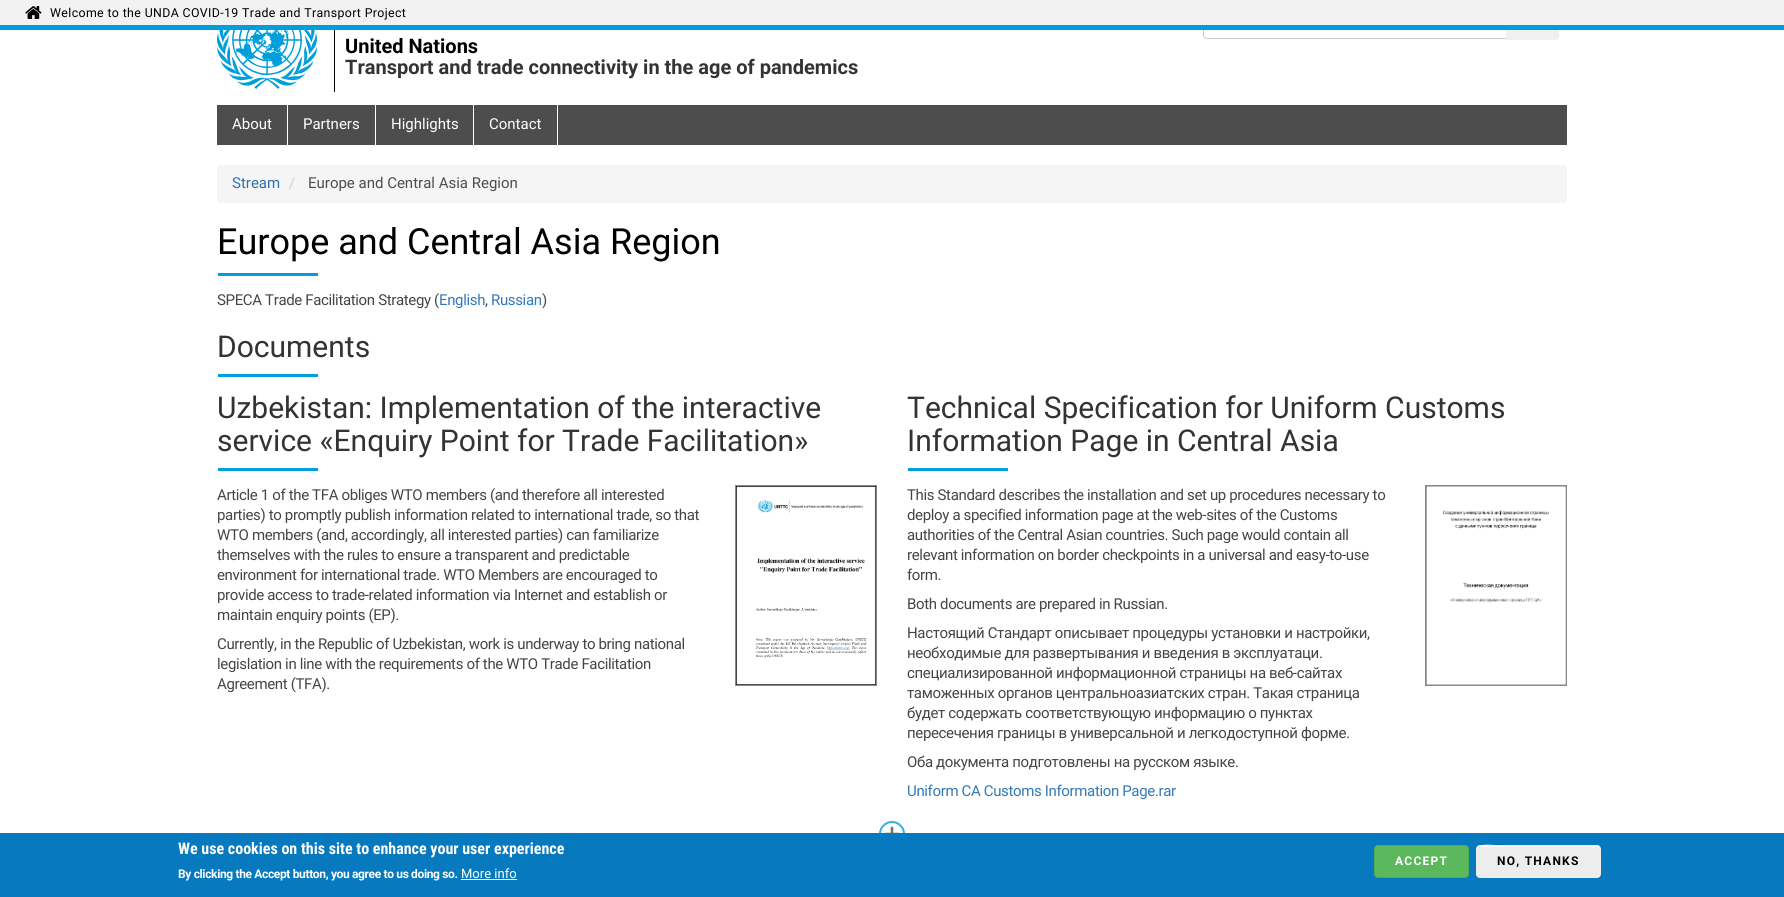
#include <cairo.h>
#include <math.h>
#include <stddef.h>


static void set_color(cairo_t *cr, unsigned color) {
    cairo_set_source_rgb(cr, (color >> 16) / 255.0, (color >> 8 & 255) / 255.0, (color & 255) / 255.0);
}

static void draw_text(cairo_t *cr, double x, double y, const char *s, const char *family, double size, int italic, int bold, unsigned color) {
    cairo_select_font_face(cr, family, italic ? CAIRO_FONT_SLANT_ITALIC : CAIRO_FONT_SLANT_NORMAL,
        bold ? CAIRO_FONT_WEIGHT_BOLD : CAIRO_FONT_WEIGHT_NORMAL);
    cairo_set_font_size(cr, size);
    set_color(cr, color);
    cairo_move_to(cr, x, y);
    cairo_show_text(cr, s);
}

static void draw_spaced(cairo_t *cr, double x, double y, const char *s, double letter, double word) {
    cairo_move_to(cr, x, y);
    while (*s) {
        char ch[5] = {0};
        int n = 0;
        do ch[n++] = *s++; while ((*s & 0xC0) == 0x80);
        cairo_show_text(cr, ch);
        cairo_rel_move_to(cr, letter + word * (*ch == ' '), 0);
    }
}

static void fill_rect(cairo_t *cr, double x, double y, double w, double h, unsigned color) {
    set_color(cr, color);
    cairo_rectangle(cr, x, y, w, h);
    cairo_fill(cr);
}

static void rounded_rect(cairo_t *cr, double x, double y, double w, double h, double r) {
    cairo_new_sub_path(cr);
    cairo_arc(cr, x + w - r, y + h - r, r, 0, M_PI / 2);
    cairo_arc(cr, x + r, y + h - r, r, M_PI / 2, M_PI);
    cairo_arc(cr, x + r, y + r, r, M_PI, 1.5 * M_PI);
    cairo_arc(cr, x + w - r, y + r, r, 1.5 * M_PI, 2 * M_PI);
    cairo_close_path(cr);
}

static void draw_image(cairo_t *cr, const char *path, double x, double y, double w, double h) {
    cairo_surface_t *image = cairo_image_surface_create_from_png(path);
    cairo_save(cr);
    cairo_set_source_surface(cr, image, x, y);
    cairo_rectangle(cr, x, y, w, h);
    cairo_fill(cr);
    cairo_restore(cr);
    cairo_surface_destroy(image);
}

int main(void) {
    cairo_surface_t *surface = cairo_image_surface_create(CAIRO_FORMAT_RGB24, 1784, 897);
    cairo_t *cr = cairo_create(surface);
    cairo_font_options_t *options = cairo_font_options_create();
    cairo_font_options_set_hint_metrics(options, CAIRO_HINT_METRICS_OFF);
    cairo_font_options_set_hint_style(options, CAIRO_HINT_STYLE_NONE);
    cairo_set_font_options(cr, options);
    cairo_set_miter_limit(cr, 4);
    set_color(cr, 0xFFFFFF);
    cairo_paint(cr);
    rounded_rect(cr, 1203.5, 5.5, 317, 33, 3.5);
    set_color(cr, 0xCCCCCC);
    cairo_set_line_width(cr, 1);
    cairo_stroke(cr);
    set_color(cr, 0xF0F0F0);
    cairo_new_path(cr);
    cairo_move_to(cr, 1506.5, 4.5);
    cairo_line_to(cr, 1555, 4.5);
    cairo_curve_to(cr, 1557, 4.5, 1558.5, 6, 1558.5, 8);
    cairo_line_to(cr, 1558.5, 36);
    cairo_curve_to(cr, 1558.5, 38, 1557, 39.5, 1555, 39.5);
    cairo_line_to(cr, 1506.5, 39.5);
    cairo_close_path(cr);
    cairo_fill_preserve(cr);
    cairo_stroke(cr);
    fill_rect(cr, 0, 0, 1784, 25, 0xF2F2F2);
    fill_rect(cr, 0, 25, 1784, 5, 0x009EDB);
    draw_image(cr, "assets/img1.png", 25, 6, 17, 13);
    cairo_select_font_face(cr, "Roboto", CAIRO_FONT_SLANT_NORMAL, CAIRO_FONT_WEIGHT_NORMAL);
    cairo_set_font_size(cr, 12.35);
    set_color(cr, 0x000000);
    draw_spaced(cr, 50, 17, "Welcome to the UNDA COVID-19 Trade and Transport Project", 0.37, 0);
    fill_rect(cr, 334, 30, 1, 62, 0x000000);
    draw_image(cr, "assets/img2.png", 217, 30, 100, 59);
    draw_text(cr, 345, 53, "United Nations", "Roboto", 20, 0, 1, 0x000000);
    draw_text(cr, 345, 74, "Transport and trade connectivity in the age of pandemics", "Roboto", 20, 0, 1, 0x333333);
    fill_rect(cr, 217, 105, 1350, 40, 0x4D4D4D);
    fill_rect(cr, 287, 105, 1, 40, 0xFFFFFF);
    draw_text(cr, 232, 129, "About", "Roboto", 15, 0, 0, 0xFFFFFF);
    fill_rect(cr, 375, 105, 1, 40, 0xFFFFFF);
    draw_text(cr, 303, 129, "Partners", "Roboto", 15, 0, 0, 0xFFFFFF);
    fill_rect(cr, 473, 105, 1, 40, 0xFFFFFF);
    draw_text(cr, 391, 129, "Highlights", "Roboto", 15, 0, 0, 0xFFFFFF);
    fill_rect(cr, 557, 105, 1, 40, 0xFFFFFF);
    draw_text(cr, 489, 129, "Contact", "Roboto", 15, 0, 0, 0xFFFFFF);
    set_color(cr, 0xF5F5F5);
    rounded_rect(cr, 217, 165, 1350, 38, 4);
    cairo_fill(cr);
    draw_text(cr, 232, 188, "Stream", "Roboto", 15, 0, 0, 0x2E72AC);
    draw_text(cr, 289, 188, "/", "Roboto", 15, 0, 0, 0xCCCCCC);
    draw_text(cr, 308, 188, "Europe and Central Asia Region", "Roboto", 15, 0, 0, 0x4D4D4D);
    draw_text(cr, 217, 254, "Europe and Central Asia Region", "Roboto", 36, 0, 0, 0x000000);
    fill_rect(cr, 218, 273, 100, 3, 0x009EDB);
    cairo_set_font_size(cr, 15);
    set_color(cr, 0x454545);
    draw_spaced(cr, 217, 305, "SPECA Trade Facilitation Strategy (", -0.35, 0);
    set_color(cr, 0x337AB7);
    draw_spaced(cr, 439, 305, "English", -0.35, 0);
    set_color(cr, 0x454545);
    draw_spaced(cr, 485, 305, ",", -0.35, 0);
    set_color(cr, 0x337AB7);
    draw_spaced(cr, 491, 305, "Russian", -0.35, 0);
    set_color(cr, 0x454545);
    draw_spaced(cr, 542, 305, ")", -0.35, 0);
    draw_text(cr, 217, 357, "Documents", "Roboto", 30, 0, 0, 0x333333);
    fill_rect(cr, 218, 374, 100, 3, 0x009EDB);
    draw_text(cr, 217, 418, "Uzbekistan: Implementation of the interactive", "Roboto", 30, 0, 0, 0x333333);
    draw_text(cr, 217, 451, "service «Enquiry Point for Trade Facilitation»", "Roboto", 30, 0, 0, 0x333333);
    fill_rect(cr, 218, 468, 100, 3, 0x009EDB);
    cairo_set_font_size(cr, 15);
    set_color(cr, 0x454545);
    draw_spaced(cr, 217, 500, "Article 1 of the TFA obliges WTO members (and therefore all interested", -0.35, 0);
    draw_spaced(cr, 217, 520, "parties) to promptly publish information related to international trade, so that", -0.35, 0);
    draw_spaced(cr, 217, 540, "WTO members (and, accordingly, all interested parties) can familiarize", -0.35, 0);
    draw_spaced(cr, 217, 560, "themselves with the rules to ensure a transparent and predictable", -0.35, 0);
    draw_spaced(cr, 217, 580, "environment for international trade. WTO Members are encouraged to", -0.35, 0);
    draw_spaced(cr, 217, 600, "provide access to trade-related information via Internet and establish or", -0.35, 0);
    draw_spaced(cr, 217, 620, "maintain enquiry points (EP).", -0.35, 0);
    draw_spaced(cr, 217, 649, "Currently, in the Republic of Uzbekistan, work is underway to bring national", -0.35, 0);
    draw_spaced(cr, 217, 669, "legislation in line with the requirements of the WTO Trade Facilitation", -0.35, 0);
    draw_spaced(cr, 217, 689, "Agreement (TFA).", -0.35, 0);
    cairo_rectangle(cr, 735.5, 485.5, 141, 200);
    set_color(cr, 0x888888);
    cairo_stroke(cr);
    draw_image(cr, "assets/img3.png", 736, 486, 140, 199);
    draw_text(cr, 907, 418, "Technical Specification for Uniform Customs", "Roboto", 30, 0, 0, 0x333333);
    draw_text(cr, 907, 451, "Information Page in Central Asia", "Roboto", 30, 0, 0, 0x333333);
    fill_rect(cr, 908, 468, 100, 3, 0x009EDB);
    cairo_set_font_size(cr, 15);
    set_color(cr, 0x454545);
    draw_spaced(cr, 907, 500, "This Standard describes the installation and set up procedures necessary to", -0.35, 0);
    draw_spaced(cr, 907, 520, "deploy a specified information page at the web-sites of the Customs", -0.35, 0);
    draw_spaced(cr, 907, 540, "authorities of the Central Asian countries. Such page would contain all", -0.35, 0);
    draw_spaced(cr, 907, 560, "relevant information on border checkpoints in a universal and easy-to-use", -0.35, 0);
    draw_spaced(cr, 907, 580, "form.", -0.35, 0);
    draw_spaced(cr, 907, 609, "Both documents are prepared in Russian.", -0.35, 0);
    draw_spaced(cr, 907, 638, "Настоящий Стандарт описывает процедуры установки и настройки,", -0.35, 0);
    draw_spaced(cr, 907, 658, "необходимые для развертывания и введения в эксплуатаци.", -0.35, 0);
    draw_spaced(cr, 907, 678, "специализированной информационной страницы на веб-сайтах", -0.35, 0);
    draw_spaced(cr, 907, 698, "таможенных органов центральноазиатских стран. Такая страница", -0.35, 0);
    draw_spaced(cr, 907, 718, "будет содержать соответствующую информацию о пунктах", -0.35, 0);
    draw_spaced(cr, 907, 738, "пересечения границы в универсальной и легкодоступной форме.", -0.35, 0);
    draw_spaced(cr, 907, 767, "Оба документа подготовлены на русском языке.", -0.35, 0);
    set_color(cr, 0x337AB7);
    draw_spaced(cr, 907, 796, "Uniform CA Customs Information Page.rar", -0.35, 0);
    cairo_rectangle(cr, 1425.5, 485.5, 141, 200);
    set_color(cr, 0x888888);
    cairo_stroke(cr);
    draw_image(cr, "assets/img4.png", 1426, 486, 140, 199);
    draw_image(cr, "assets/img5.png", 879, 821, 26, 12);
    fill_rect(cr, 0, 833, 1784, 64, 0x0779BF);
    draw_text(cr, 178, 854, "We use cookies on this site to enhance your user experience", "Roboto Condensed", 16, 0, 1, 0xFFFFFF);
    cairo_select_font_face(cr, "Roboto", CAIRO_FONT_SLANT_NORMAL, CAIRO_FONT_WEIGHT_BOLD);
    cairo_set_font_size(cr, 12);
    draw_spaced(cr, 178, 878, "By clicking the Accept button, you agree to us doing so.", -0.35, 0);
    draw_text(cr, 461, 878, "More info", "Roboto", 13, 0, 0, 0xFFFFFF);
    fill_rect(cr, 461, 879, 56, 1, 0xFFFFFF);
    set_color(cr, 0x5CB85C);
    rounded_rect(cr, 1374.5, 845.5, 94, 32, 3.5);
    cairo_fill_preserve(cr);
    set_color(cr, 0x4CAE4C);
    cairo_stroke(cr);
    cairo_select_font_face(cr, "Roboto", CAIRO_FONT_SLANT_NORMAL, CAIRO_FONT_WEIGHT_BOLD);
    cairo_set_font_size(cr, 12);
    set_color(cr, 0xFFFFFF);
    draw_spaced(cr, 1395, 865, "ACCEPT", 1.25, 0);
    set_color(cr, 0xEDEDED);
    rounded_rect(cr, 1476, 845, 125, 33, 4);
    cairo_fill(cr);
    set_color(cr, 0xFFFFFF);
    cairo_new_path(cr);
    cairo_move_to(cr, 1480, 847);
    cairo_line_to(cr, 1597, 847);
    cairo_curve_to(cr, 1599, 847, 1600, 848, 1600, 850);
    cairo_curve_to(cr, 1600, 848, 1599, 846, 1597, 846);
    cairo_line_to(cr, 1500, 846);
    cairo_curve_to(cr, 1499, 846, 1477, 841, 1477, 850);
    cairo_curve_to(cr, 1477, 848, 1478, 847, 1480, 847);
    cairo_close_path(cr);
    cairo_fill(cr);
    set_color(cr, 0x000000);
    draw_spaced(cr, 1497, 865, "NO, THANKS", 1.25, 0);
    cairo_surface_write_to_png(surface, "output.png");
    cairo_font_options_destroy(options);
    cairo_destroy(cr);
    cairo_surface_destroy(surface);
    return 0;
}
